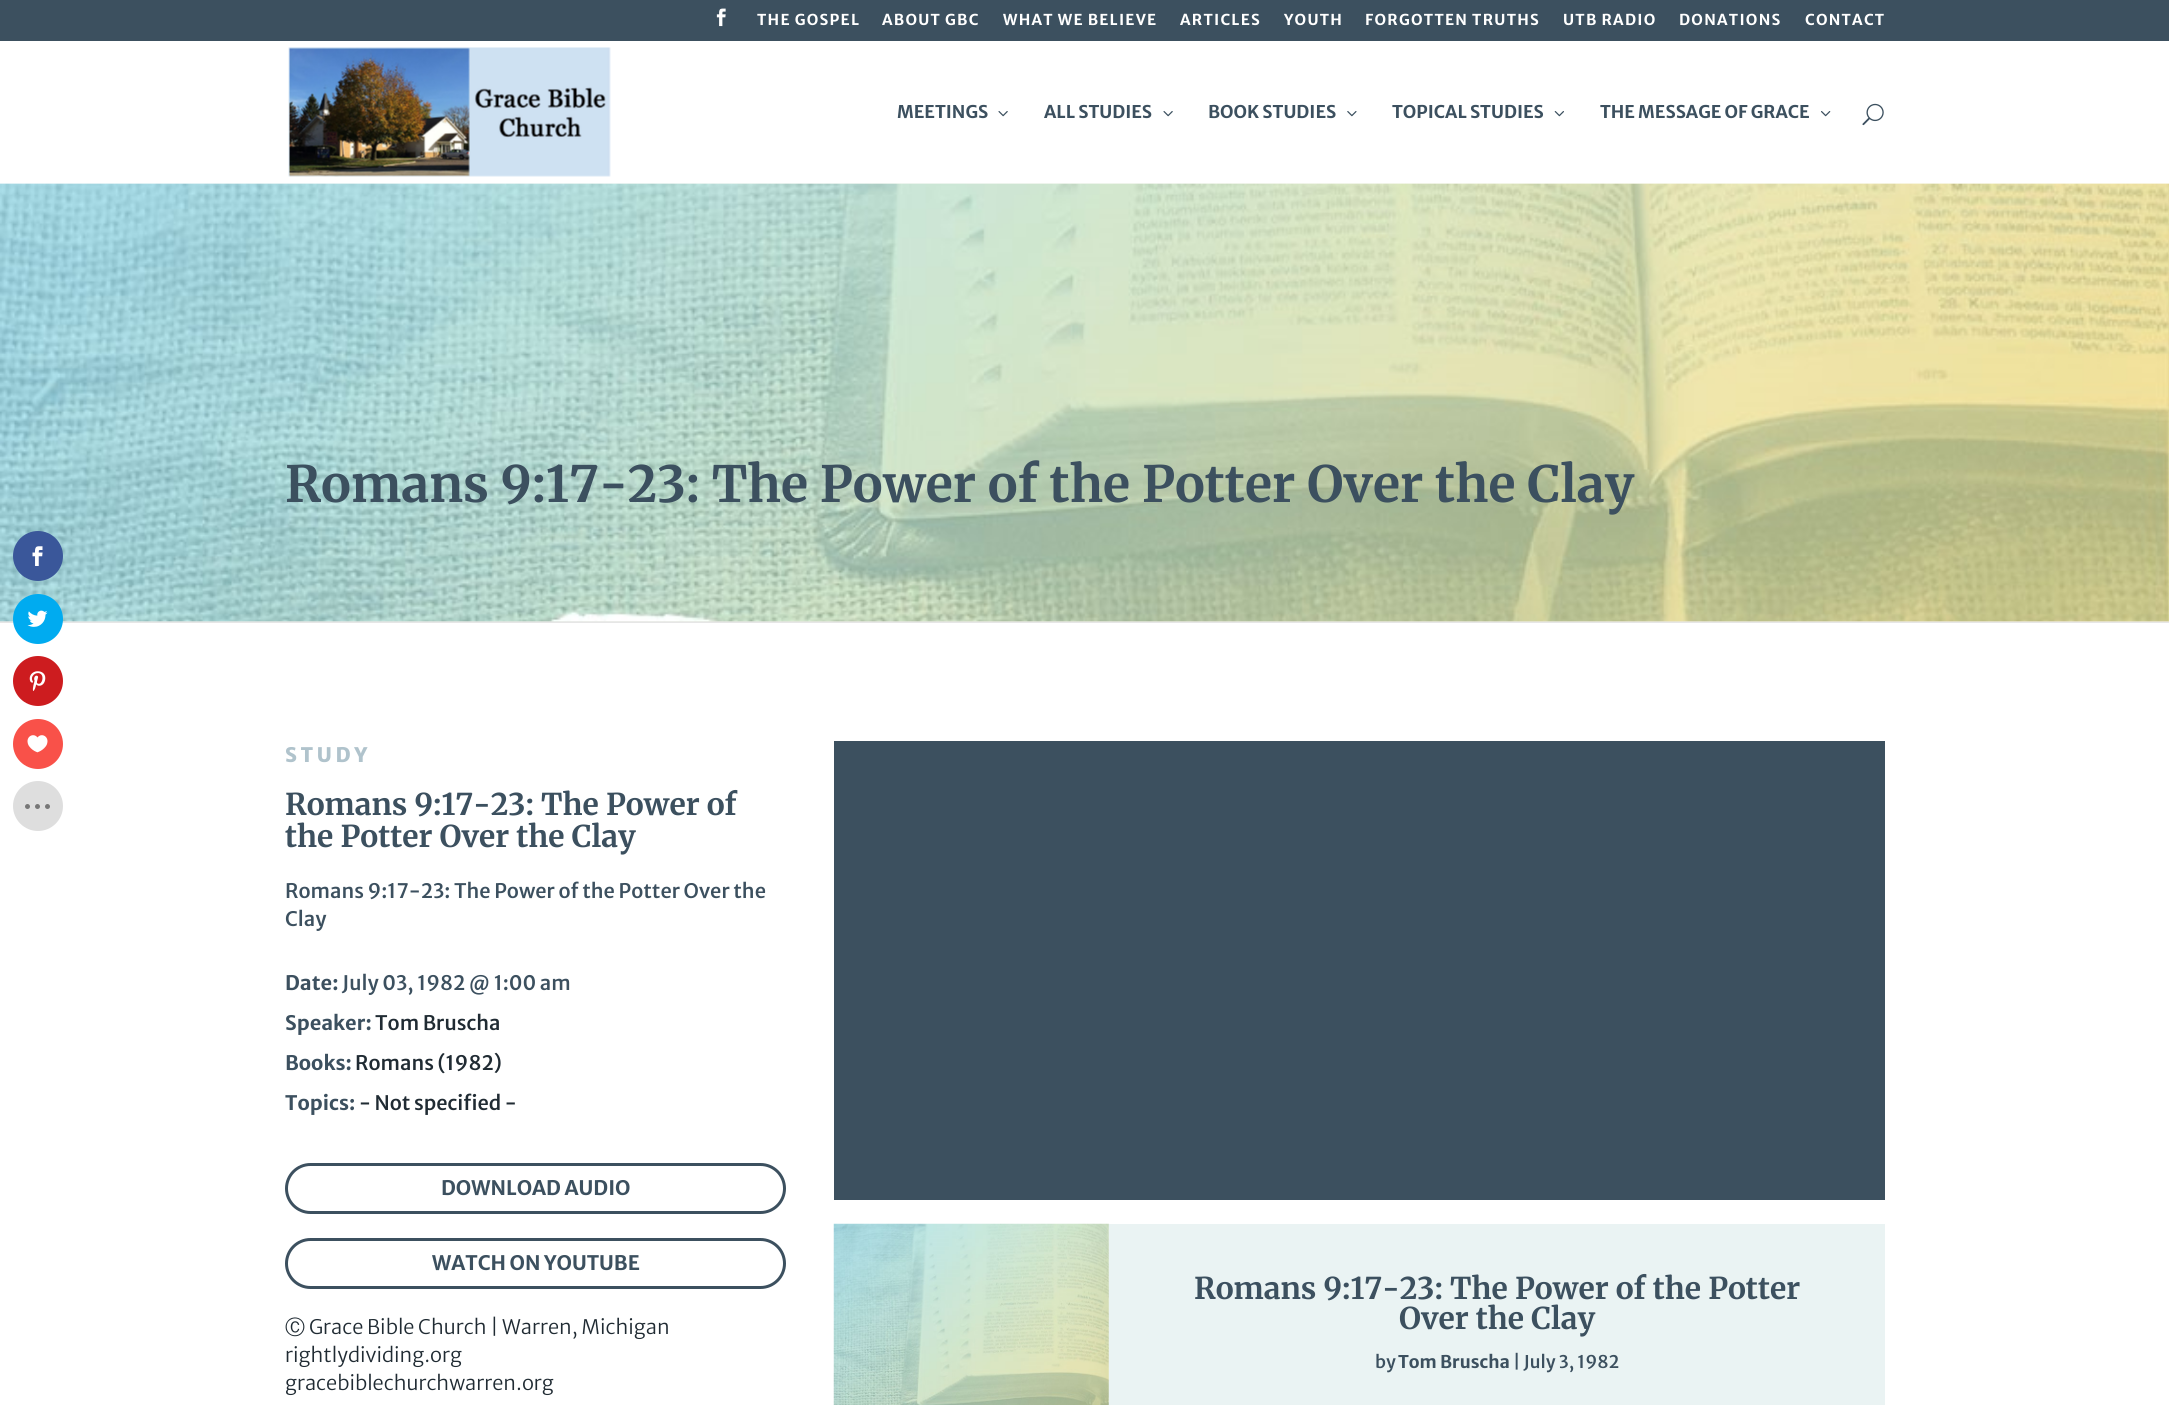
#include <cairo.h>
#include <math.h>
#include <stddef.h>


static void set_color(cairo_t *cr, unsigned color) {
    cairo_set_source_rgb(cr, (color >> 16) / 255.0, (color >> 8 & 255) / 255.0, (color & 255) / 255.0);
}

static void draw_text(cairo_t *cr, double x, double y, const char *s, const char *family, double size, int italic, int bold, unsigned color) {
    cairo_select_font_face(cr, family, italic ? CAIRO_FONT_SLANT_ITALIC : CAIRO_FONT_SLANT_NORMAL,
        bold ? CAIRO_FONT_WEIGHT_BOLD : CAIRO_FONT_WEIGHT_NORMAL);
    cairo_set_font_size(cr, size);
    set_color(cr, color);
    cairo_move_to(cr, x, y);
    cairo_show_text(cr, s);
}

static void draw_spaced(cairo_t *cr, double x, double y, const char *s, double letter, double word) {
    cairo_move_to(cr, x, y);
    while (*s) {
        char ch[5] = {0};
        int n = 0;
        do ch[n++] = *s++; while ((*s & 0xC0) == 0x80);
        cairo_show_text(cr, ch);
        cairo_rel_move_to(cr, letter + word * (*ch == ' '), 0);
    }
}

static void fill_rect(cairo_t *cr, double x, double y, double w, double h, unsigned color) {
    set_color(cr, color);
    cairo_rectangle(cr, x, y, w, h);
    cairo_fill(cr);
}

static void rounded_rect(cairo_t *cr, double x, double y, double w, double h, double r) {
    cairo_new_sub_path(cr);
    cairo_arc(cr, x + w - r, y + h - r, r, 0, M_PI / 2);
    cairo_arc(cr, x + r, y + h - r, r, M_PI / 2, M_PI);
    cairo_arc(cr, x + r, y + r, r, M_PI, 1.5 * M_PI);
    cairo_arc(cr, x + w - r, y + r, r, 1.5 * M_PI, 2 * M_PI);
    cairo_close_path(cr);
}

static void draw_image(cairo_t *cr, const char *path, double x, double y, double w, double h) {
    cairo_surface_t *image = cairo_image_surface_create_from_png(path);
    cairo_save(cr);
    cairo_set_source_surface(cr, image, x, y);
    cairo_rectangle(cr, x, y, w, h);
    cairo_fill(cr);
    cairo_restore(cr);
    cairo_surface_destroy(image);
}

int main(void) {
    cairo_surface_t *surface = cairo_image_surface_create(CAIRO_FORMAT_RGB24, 2169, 1405);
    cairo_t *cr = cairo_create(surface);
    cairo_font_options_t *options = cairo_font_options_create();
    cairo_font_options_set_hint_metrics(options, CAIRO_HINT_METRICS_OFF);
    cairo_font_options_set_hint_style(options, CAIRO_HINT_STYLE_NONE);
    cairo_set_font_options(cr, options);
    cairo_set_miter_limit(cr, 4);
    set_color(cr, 0xFFFFFF);
    cairo_paint(cr);
    fill_rect(cr, 0, 621, 2169, 2, 0xE6E6E6);
    draw_image(cr, "assets/img13.png", 0, 183, 2169, 439);
    set_color(cr, 0x3A579A);
    cairo_arc(cr, 38, 556, 25, 0, 2 * M_PI);
    cairo_fill(cr);
    draw_image(cr, "assets/img1.png", 32, 546, 11, 20);
    set_color(cr, 0x00ABF0);
    cairo_arc(cr, 38, 619, 25, 0, 2 * M_PI);
    cairo_fill(cr);
    draw_image(cr, "assets/img2.png", 27, 610, 21, 17);
    set_color(cr, 0xCD1C1F);
    cairo_arc(cr, 38, 681, 25, 0, 2 * M_PI);
    cairo_fill(cr);
    draw_image(cr, "assets/img3.png", 29, 671, 17, 20);
    set_color(cr, 0xF95149);
    cairo_arc(cr, 38, 744, 25, 0, 2 * M_PI);
    cairo_fill(cr);
    draw_image(cr, "assets/img4.png", 27, 735, 21, 18);
    set_color(cr, 0xDEDEDE);
    cairo_arc(cr, 38, 806, 25, 0, 2 * M_PI);
    cairo_fill(cr);
    draw_image(cr, "assets/img5.png", 25, 804, 25, 5);
    fill_rect(cr, 0, 0, 2169, 41, 0x3C505F);
    draw_image(cr, "assets/img6.png", 716, 8, 10, 19);
    cairo_select_font_face(cr, "Merriweather Sans", CAIRO_FONT_SLANT_NORMAL, CAIRO_FONT_WEIGHT_BOLD);
    cairo_set_font_size(cr, 15);
    set_color(cr, 0xFFFFFF);
    draw_spaced(cr, 757, 25, "THE GOSPEL", 1.25, 0);
    draw_spaced(cr, 882, 25, "ABOUT GBC", 1.25, 0);
    draw_spaced(cr, 1003, 25, "WHAT WE BELIEVE", 1.25, 0);
    draw_spaced(cr, 1180, 25, "ARTICLES", 1.25, 0);
    draw_spaced(cr, 1284, 25, "YOUTH", 1.25, 0);
    draw_spaced(cr, 1365, 25, "FORGOTTEN TRUTHS", 1.25, 0);
    draw_spaced(cr, 1563, 25, "UTB RADIO", 1.25, 0);
    draw_spaced(cr, 1679, 25, "DONATIONS", 1.25, 0);
    draw_spaced(cr, 1805, 25, "CONTACT", 1.25, 0);
    draw_image(cr, "assets/img7.png", 288, 47, 323, 130);
    draw_text(cr, 897, 118, "MEETINGS", "Merriweather Sans", 17.5, 0, 1, 0x3C505F);
    draw_image(cr, "assets/img8.png", 998, 111, 10, 6);
    draw_text(cr, 1044, 118, "ALL STUDIES", "Merriweather Sans", 17.5, 0, 1, 0x3C505F);
    draw_image(cr, "assets/img8.png", 1163, 111, 10, 6);
    draw_text(cr, 1208, 118, "BOOK STUDIES", "Merriweather Sans", 17.5, 0, 1, 0x3C505F);
    draw_image(cr, "assets/img9.png", 1347, 111, 10, 6);
    draw_text(cr, 1392, 118, "TOPICAL STUDIES", "Merriweather Sans", 17.5, 0, 1, 0x3C505F);
    draw_image(cr, "assets/img10.png", 1554, 111, 10, 6);
    draw_text(cr, 1600, 118, "THE MESSAGE OF GRACE", "Merriweather Sans", 17.5, 0, 1, 0x3C505F);
    draw_image(cr, "assets/img11.png", 1821, 111, 10, 6);
    draw_image(cr, "assets/img12.png", 1862, 103, 22, 23);
    draw_text(cr, 285, 502, "Romans 9:17-23: The Power of the Potter Over the Clay", "Merriweather", 50, 0, 1, 0x3C505F);
    cairo_select_font_face(cr, "Merriweather Sans ExtraBold", CAIRO_FONT_SLANT_NORMAL, CAIRO_FONT_WEIGHT_NORMAL);
    cairo_set_font_size(cr, 20);
    set_color(cr, 0xB0C3CC);
    draw_spaced(cr, 285, 762, "STUDY", 3.75, 0);
    draw_text(cr, 285, 815, "Romans 9:17-23: The Power of", "Merriweather", 30, 0, 1, 0x3C505F);
    draw_text(cr, 285, 847, "the Potter Over the Clay", "Merriweather", 30, 0, 1, 0x3C505F);
    draw_text(cr, 285, 898, "Romans 9:17-23: The Power of the Potter Over the", "Merriweather Sans Medium", 20, 0, 0, 0x3C505F);
    draw_text(cr, 285, 926, "Clay", "Merriweather Sans Medium", 20, 0, 0, 0x3C505F);
    draw_text(cr, 285, 990, "Date:", "Merriweather Sans", 20, 0, 1, 0x3C505F);
    draw_text(cr, 342, 990, "July 03, 1982 @ 1:00 am", "Merriweather Sans Medium", 20, 0, 0, 0x3C505F);
    draw_text(cr, 285, 1030, "Speaker:", "Merriweather Sans", 20, 0, 1, 0x3C505F);
    draw_text(cr, 375, 1030, "Tom Bruscha", "Merriweather Sans Medium", 20, 0, 0, 0x202B33);
    draw_text(cr, 285, 1070, "Books:", "Merriweather Sans", 20, 0, 1, 0x3C505F);
    draw_text(cr, 355, 1070, "Romans (1982)", "Merriweather Sans Medium", 20, 0, 0, 0x202B33);
    draw_text(cr, 285, 1110, "Topics:", "Merriweather Sans", 20, 0, 1, 0x3C505F);
    draw_text(cr, 359, 1110, "- Not specified -", "Merriweather Sans Medium", 20, 0, 0, 0x202B33);
    rounded_rect(cr, 286.5, 1164.5, 498, 48, 24);
    set_color(cr, 0x3C505F);
    cairo_set_line_width(cr, 3);
    cairo_stroke(cr);
    draw_text(cr, 441, 1195, "DOWNLOAD AUDIO", "Merriweather Sans", 20, 0, 1, 0x3C505F);
    rounded_rect(cr, 286.5, 1239.5, 498, 48, 24);
    cairo_stroke(cr);
    draw_text(cr, 432, 1270, "WATCH ON YOUTUBE", "Merriweather Sans", 20, 0, 1, 0x3C505F);
    draw_text(cr, 285, 1334, "Ⓒ", "WenQuanYi Zen Hei Medium", 20, 0, 0, 0x202B33);
    draw_text(cr, 309, 1334, "Grace Bible Church | Warren, Michigan", "Merriweather Sans Light", 20, 0, 0, 0x202B33);
    draw_text(cr, 285, 1362, "rightlydividing.org", "Merriweather Sans Light", 20, 0, 0, 0x202B33);
    draw_text(cr, 285, 1390, "gracebiblechurchwarren.org", "Merriweather Sans Light", 20, 0, 0, 0x202B33);
    fill_rect(cr, 834, 741, 1051, 459, 0x3C505F);
    fill_rect(cr, 1108, 1224, 777, 181, 0xEAF3F3);
    draw_image(cr, "assets/img14.png", 833, 1223, 276, 182);
    draw_text(cr, 1194, 1299, "Romans 9:17-23: The Power of the Potter", "Merriweather", 30, 0, 1, 0x3C505F);
    draw_text(cr, 1399, 1329, "Over the Clay", "Merriweather", 30, 0, 1, 0x3C505F);
    draw_text(cr, 1375, 1368, "by", "Merriweather Sans Medium", 17.5, 0, 0, 0x3C505F);
    draw_text(cr, 1398, 1368, "Tom Bruscha", "Merriweather Sans", 17.5, 0, 1, 0x3C505F);
    draw_text(cr, 1513, 1368, "| July 3, 1982", "Merriweather Sans Medium", 17.5, 0, 0, 0x3C505F);
    cairo_surface_write_to_png(surface, "output.png");
    cairo_font_options_destroy(options);
    cairo_destroy(cr);
    cairo_surface_destroy(surface);
    return 0;
}
